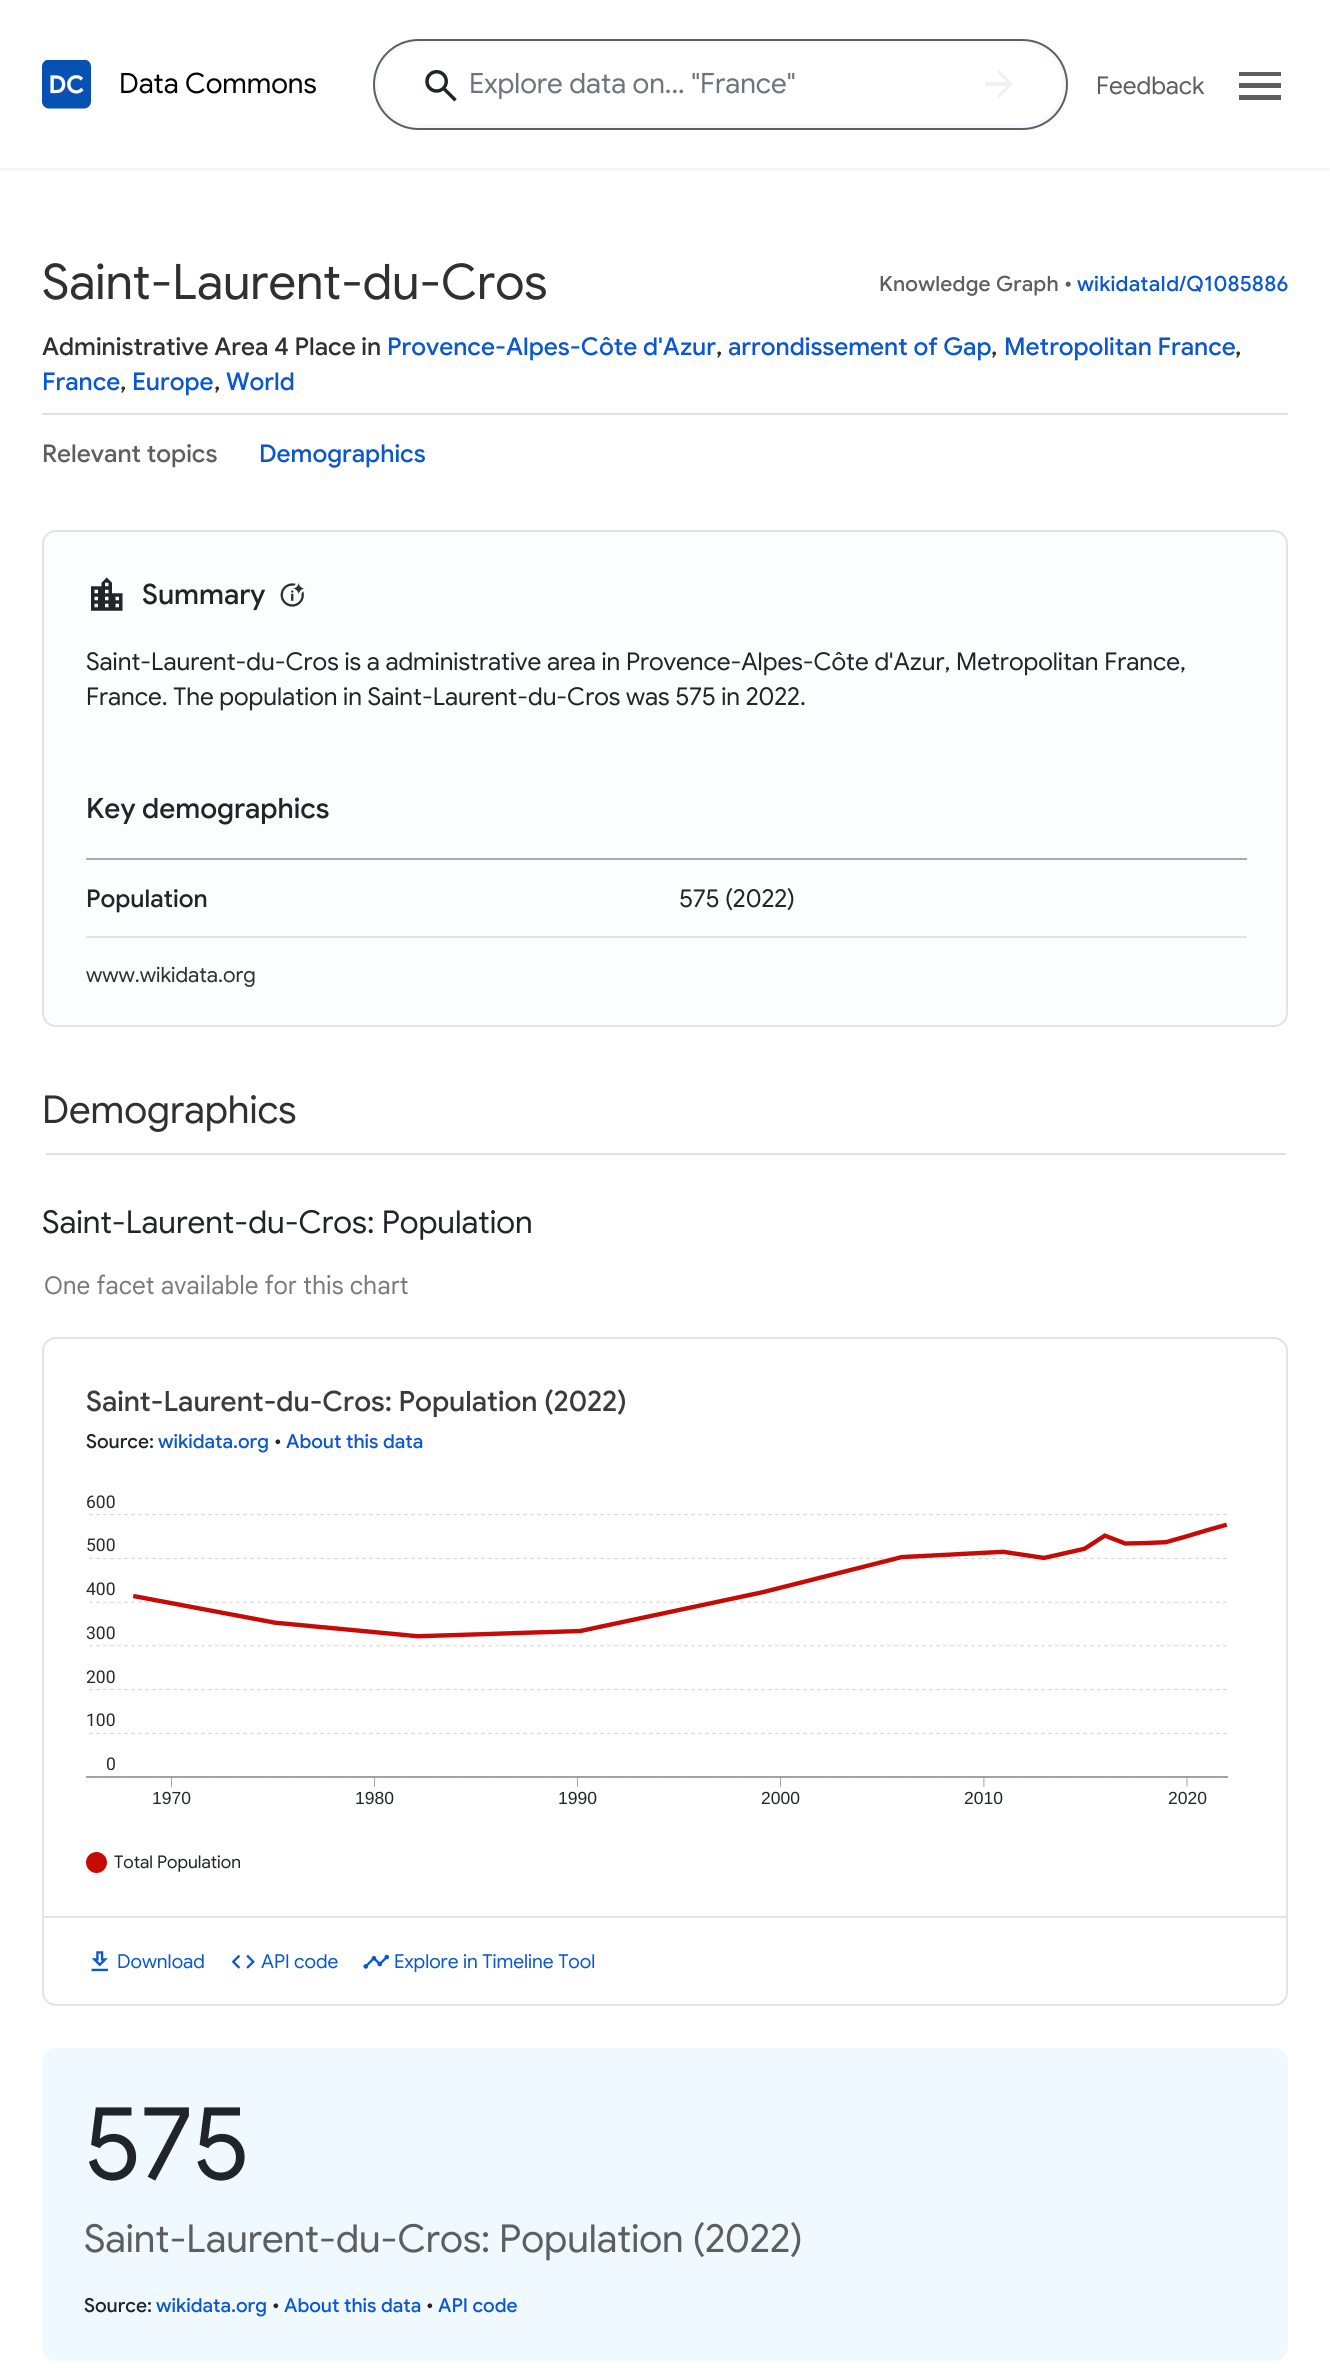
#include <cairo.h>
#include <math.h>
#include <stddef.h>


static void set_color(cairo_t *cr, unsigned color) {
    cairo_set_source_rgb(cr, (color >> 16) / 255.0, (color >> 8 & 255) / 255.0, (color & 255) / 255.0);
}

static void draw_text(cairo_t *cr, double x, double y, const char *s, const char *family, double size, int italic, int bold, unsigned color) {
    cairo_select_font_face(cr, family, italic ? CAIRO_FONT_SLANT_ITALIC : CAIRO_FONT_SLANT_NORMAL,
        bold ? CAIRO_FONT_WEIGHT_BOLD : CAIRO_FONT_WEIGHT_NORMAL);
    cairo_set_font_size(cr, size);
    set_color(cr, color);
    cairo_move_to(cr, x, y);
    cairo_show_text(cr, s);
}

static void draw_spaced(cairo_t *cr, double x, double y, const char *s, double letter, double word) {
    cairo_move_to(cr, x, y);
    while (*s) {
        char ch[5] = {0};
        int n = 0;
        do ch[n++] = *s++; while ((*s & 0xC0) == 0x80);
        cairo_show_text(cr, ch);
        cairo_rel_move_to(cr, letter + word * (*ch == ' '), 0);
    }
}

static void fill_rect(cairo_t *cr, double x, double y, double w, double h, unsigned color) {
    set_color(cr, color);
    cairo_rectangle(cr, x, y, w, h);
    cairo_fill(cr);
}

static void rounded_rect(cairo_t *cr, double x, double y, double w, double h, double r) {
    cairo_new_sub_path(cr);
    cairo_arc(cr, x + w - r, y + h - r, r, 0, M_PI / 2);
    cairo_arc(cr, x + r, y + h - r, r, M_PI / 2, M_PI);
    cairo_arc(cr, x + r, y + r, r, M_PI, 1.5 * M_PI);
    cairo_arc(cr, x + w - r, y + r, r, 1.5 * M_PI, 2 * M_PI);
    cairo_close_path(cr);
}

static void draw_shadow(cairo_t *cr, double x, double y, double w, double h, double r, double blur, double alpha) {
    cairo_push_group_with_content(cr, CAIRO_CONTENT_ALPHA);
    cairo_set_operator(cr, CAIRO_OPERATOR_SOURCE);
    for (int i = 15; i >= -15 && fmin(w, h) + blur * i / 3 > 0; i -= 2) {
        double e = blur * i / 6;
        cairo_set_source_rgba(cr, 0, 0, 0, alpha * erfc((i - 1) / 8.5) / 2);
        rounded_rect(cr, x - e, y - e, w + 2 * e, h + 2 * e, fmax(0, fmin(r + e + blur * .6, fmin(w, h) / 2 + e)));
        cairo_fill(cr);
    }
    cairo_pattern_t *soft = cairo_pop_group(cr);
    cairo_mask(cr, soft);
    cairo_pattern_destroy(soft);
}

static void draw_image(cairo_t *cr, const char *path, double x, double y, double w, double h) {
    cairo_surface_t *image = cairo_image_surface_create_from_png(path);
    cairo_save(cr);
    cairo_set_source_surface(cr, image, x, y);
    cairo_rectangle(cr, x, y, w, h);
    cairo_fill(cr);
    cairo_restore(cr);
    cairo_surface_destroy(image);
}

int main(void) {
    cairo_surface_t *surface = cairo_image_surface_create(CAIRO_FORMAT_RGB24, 1330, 2372);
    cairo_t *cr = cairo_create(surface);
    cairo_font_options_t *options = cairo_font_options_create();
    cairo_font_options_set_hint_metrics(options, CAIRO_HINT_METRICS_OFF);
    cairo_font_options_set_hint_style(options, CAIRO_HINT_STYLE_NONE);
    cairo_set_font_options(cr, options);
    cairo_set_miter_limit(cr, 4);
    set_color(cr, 0xFFFFFF);
    cairo_paint(cr);
    cairo_save(cr);
    cairo_rectangle(cr, 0, 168, 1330, 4);
    cairo_clip(cr);
    set_color(cr, 0x5E5E5E);
    draw_shadow(cr, 0, 2, 1330, 168, 0, 2, 0.1);
    cairo_restore(cr);
    draw_image(cr, "assets/img1.png", 42, 60, 49, 49);
    draw_text(cr, 119, 93, "Data Commons", "Google Sans", 28, 0, 0, 0x000000);
    set_color(cr, 0xF6F9FF);
    rounded_rect(cr, 374, 40, 693, 89, 44.5);
    cairo_fill_preserve(cr);
    set_color(cr, 0x5E5E5E);
    cairo_stroke(cr);
    set_color(cr, 0xFFFFFF);
    rounded_rect(cr, 378, 44, 684, 80, 40);
    cairo_fill(cr);
    draw_image(cr, "assets/img2.png", 425, 70, 32, 32);
    draw_text(cr, 469, 93, "Explore data on... \"France\"", "Google Sans", 28, 0, 0, 0x6C757D);
    set_color(cr, 0xF1F1F1);
    cairo_new_path(cr);
    cairo_move_to(cr, 1006.5, 86);
    cairo_line_to(cr, 985, 86);
    cairo_line_to(cr, 985, 82);
    cairo_line_to(cr, 1006.5, 82);
    cairo_line_to(cr, 997, 72.5);
    cairo_line_to(cr, 999, 70);
    cairo_line_to(cr, 1013, 84);
    cairo_line_to(cr, 999, 98);
    cairo_line_to(cr, 997, 95.5);
    cairo_close_path(cr);
    cairo_fill(cr);
    draw_text(cr, 1096, 94, "Feedback", "Google Sans", 24.5, 0, 0, 0x5E5E5E);
    cairo_new_path(cr);
    cairo_move_to(cr, 1239, 100);
    cairo_line_to(cr, 1239, 95);
    cairo_line_to(cr, 1281, 95);
    cairo_line_to(cr, 1281, 100);
    cairo_close_path(cr);
    cairo_move_to(cr, 1239, 88);
    cairo_line_to(cr, 1239, 83);
    cairo_line_to(cr, 1281, 83);
    cairo_line_to(cr, 1281, 88);
    cairo_close_path(cr);
    cairo_move_to(cr, 1239, 76);
    cairo_line_to(cr, 1239, 72);
    cairo_line_to(cr, 1281, 72);
    cairo_line_to(cr, 1281, 76);
    cairo_close_path(cr);
    cairo_fill(cr);
    draw_text(cr, 42, 299, "Saint-Laurent-du-Cros", "Google Sans", 49, 0, 0, 0x303030);
    cairo_select_font_face(cr, "Google Sans Medium", CAIRO_FONT_SLANT_NORMAL, CAIRO_FONT_WEIGHT_NORMAL);
    cairo_set_font_size(cr, 21);
    set_color(cr, 0x5E5E5E);
    draw_spaced(cr, 879, 291, "Knowledge Graph •", 0.2, 0);
    set_color(cr, 0x0B57D0);
    draw_spaced(cr, 1077, 291, "wikidataId/Q1085886", 0.2, 0);
    draw_text(cr, 42, 355, "Administrative Area 4 Place in", "Google Sans Medium", 24.5, 0, 0, 0x303030);
    draw_text(cr, 387, 355, "Provence-Alpes-Côte d'Azur", "Google Sans Medium", 24.5, 0, 0, 0x0B57D0);
    draw_text(cr, 716, 355, ",", "Google Sans Medium", 24.5, 0, 0, 0x303030);
    draw_text(cr, 728, 355, "arrondissement of Gap", "Google Sans Medium", 24.5, 0, 0, 0x0B57D0);
    draw_text(cr, 991, 355, ",", "Google Sans Medium", 24.5, 0, 0, 0x303030);
    draw_text(cr, 1004, 355, "Metropolitan France", "Google Sans Medium", 24.5, 0, 0, 0x0B57D0);
    draw_text(cr, 1235, 355, ",", "Google Sans Medium", 24.5, 0, 0, 0x303030);
    draw_text(cr, 42, 390, "France", "Google Sans Medium", 24.5, 0, 0, 0x0B57D0);
    draw_text(cr, 120, 390, ",", "Google Sans Medium", 24.5, 0, 0, 0x303030);
    draw_text(cr, 132, 390, "Europe", "Google Sans Medium", 24.5, 0, 0, 0x0B57D0);
    draw_text(cr, 214, 390, ",", "Google Sans Medium", 24.5, 0, 0, 0x303030);
    draw_text(cr, 226, 390, "World", "Google Sans Medium", 24.5, 0, 0, 0x0B57D0);
    fill_rect(cr, 42, 413, 1246, 2, 0xE0E0E0);
    draw_text(cr, 42, 462, "Relevant topics", "Google Sans Medium", 24.5, 0, 0, 0x5E5E5E);
    draw_text(cr, 259, 462, "Demographics", "Google Sans Medium", 24.5, 0, 0, 0x0B57D0);
    set_color(cr, 0xFBFDFF);
    rounded_rect(cr, 43, 531, 1244, 495, 13);
    cairo_fill_preserve(cr);
    set_color(cr, 0xE3E3E3);
    cairo_stroke(cr);
    draw_image(cr, "assets/img3.png", 91, 577, 32, 34);
    draw_text(cr, 142, 604, "Summary", "Google Sans Medium", 28, 0, 0, 0x212529);
    draw_image(cr, "assets/img4.png", 280, 582, 25, 25);
    draw_text(cr, 86, 670, "Saint-Laurent-du-Cros is a administrative area in Provence-Alpes-Côte d'Azur, Metropolitan France,", "Google Sans", 24.5, 0, 0, 0x212529);
    draw_text(cr, 86, 705, "France. The population in Saint-Laurent-du-Cros was 575 in 2022.", "Google Sans", 24.5, 0, 0, 0x212529);
    draw_text(cr, 86, 818, "Key demographics", "Google Sans Medium", 28, 0, 0, 0x212529);
    fill_rect(cr, 86, 858, 1161, 2, 0xABABAB);
    draw_text(cr, 86, 907, "Population", "Google Sans Medium", 24.5, 0, 0, 0x212529);
    draw_text(cr, 679, 907, "575 (2022)", "Google Sans", 24.5, 0, 0, 0x212529);
    fill_rect(cr, 86, 936, 1161, 2, 0xE1E3E1);
    draw_text(cr, 86, 982, "www.wikidata.org", "Google Sans", 21, 0, 0, 0x303030);
    fill_rect(cr, 46, 1153, 1240, 2, 0xE0E0E0);
    draw_text(cr, 42, 1123, "Demographics", "Google Sans", 38.5, 0, 0, 0x303030);
    draw_text(cr, 42, 1233, "Saint-Laurent-du-Cros: Population", "Google Sans", 31.5, 0, 0, 0x212529);
    draw_text(cr, 44, 1294, "One facet available for this chart", "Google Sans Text", 24.5, 0, 0, 0x7A7A7A);
    rounded_rect(cr, 43, 1338, 1244, 667, 13);
    set_color(cr, 0xE3E3E3);
    cairo_stroke(cr);
    draw_text(cr, 86, 1411, "Saint-Laurent-du-Cros: Population (2022)", "Google Sans Medium", 28, 0, 0, 0x3B3B3B);
    draw_text(cr, 86, 1448, "Source:", "Google Sans Medium", 19.25, 0, 0, 0x212529);
    draw_text(cr, 158, 1448, "wikidata.org", "Google Sans Medium", 19.25, 0, 0, 0x0B57D0);
    draw_text(cr, 274, 1448, "•", "Google Sans Medium", 19.25, 0, 0, 0x212529);
    draw_text(cr, 286, 1448, "About this data", "Google Sans Medium", 19.25, 0, 0, 0x0B57D0);
    draw_text(cr, 86, 1508, "600", "Roboto", 17.5, 0, 0, 0x2B2929);
    draw_image(cr, "assets/img5.png", 86, 1514, 1142, 273);
    draw_text(cr, 86, 1551, "500", "Roboto", 17.5, 0, 0, 0x2B2929);
    draw_text(cr, 86, 1595, "400", "Roboto", 17.5, 0, 0, 0x2B2929);
    draw_text(cr, 86, 1639, "300", "Roboto", 17.5, 0, 0, 0x2B2929);
    draw_text(cr, 86, 1683, "200", "Roboto", 17.5, 0, 0, 0x2B2929);
    draw_text(cr, 86, 1726, "100", "Roboto", 17.5, 0, 0, 0x2B2929);
    draw_text(cr, 106, 1770, "0", "Roboto", 17.5, 0, 0, 0x2B2929);
    draw_text(cr, 152, 1804, "1970", "Liberation Sans", 17.5, 0, 0, 0x212529);
    draw_text(cr, 355, 1804, "1980", "Liberation Sans", 17.5, 0, 0, 0x212529);
    draw_text(cr, 558, 1804, "1990", "Liberation Sans", 17.5, 0, 0, 0x212529);
    draw_text(cr, 761, 1804, "2000", "Liberation Sans", 17.5, 0, 0, 0x212529);
    draw_text(cr, 964, 1804, "2010", "Liberation Sans", 17.5, 0, 0, 0x212529);
    draw_text(cr, 1168, 1804, "2020", "Liberation Sans", 17.5, 0, 0, 0x212529);
    set_color(cr, 0xC60B07);
    cairo_new_path(cr);
    cairo_arc(cr, 96.5, 1862.5, 10.5, 0, 2 * M_PI);
    cairo_fill(cr);
    draw_text(cr, 114, 1868, "Total Population", "Google Sans", 17.5, 0, 0, 0x212529);
    fill_rect(cr, 44, 1916, 1242, 2, 0xE3E3E3);
    draw_image(cr, "assets/img6.png", 91, 1951, 17, 21);
    draw_text(cr, 117, 1968, "Download", "Google Sans", 19.25, 0, 0, 0x0B57D0);
    draw_image(cr, "assets/img7.png", 231, 1954, 24, 15);
    draw_text(cr, 261, 1968, "API code", "Google Sans", 19.25, 0, 0, 0x0B57D0);
    draw_image(cr, "assets/img8.png", 363, 1954, 27, 15);
    draw_text(cr, 394, 1968, "Explore in Timeline Tool", "Google Sans", 19.25, 0, 0, 0x0B57D0);
    set_color(cr, 0xEFF9FF);
    rounded_rect(cr, 42, 2048, 1246, 313, 14);
    cairo_fill(cr);
    draw_text(cr, 84, 2179, "575", "Google Sans", 100, 0, 0, 0x212529);
    draw_text(cr, 84, 2252, "Saint-Laurent-du-Cros: Population (2022)", "Google Sans", 38.5, 0, 0, 0x5E5E5E);
    draw_text(cr, 84, 2312, "Source:", "Google Sans Medium", 19.25, 0, 0, 0x212529);
    draw_text(cr, 156, 2312, "wikidata.org", "Google Sans Medium", 19.25, 0, 0, 0x0B57D0);
    draw_text(cr, 272, 2312, "•", "Google Sans Medium", 19.25, 0, 0, 0x212529);
    draw_text(cr, 284, 2312, "About this data", "Google Sans Medium", 19.25, 0, 0, 0x0B57D0);
    draw_text(cr, 426, 2312, "•", "Google Sans Medium", 19.25, 0, 0, 0x212529);
    draw_text(cr, 438, 2312, "API code", "Google Sans Medium", 19.25, 0, 0, 0x0B57D0);
    cairo_surface_write_to_png(surface, "output.png");
    cairo_font_options_destroy(options);
    cairo_destroy(cr);
    cairo_surface_destroy(surface);
    return 0;
}
